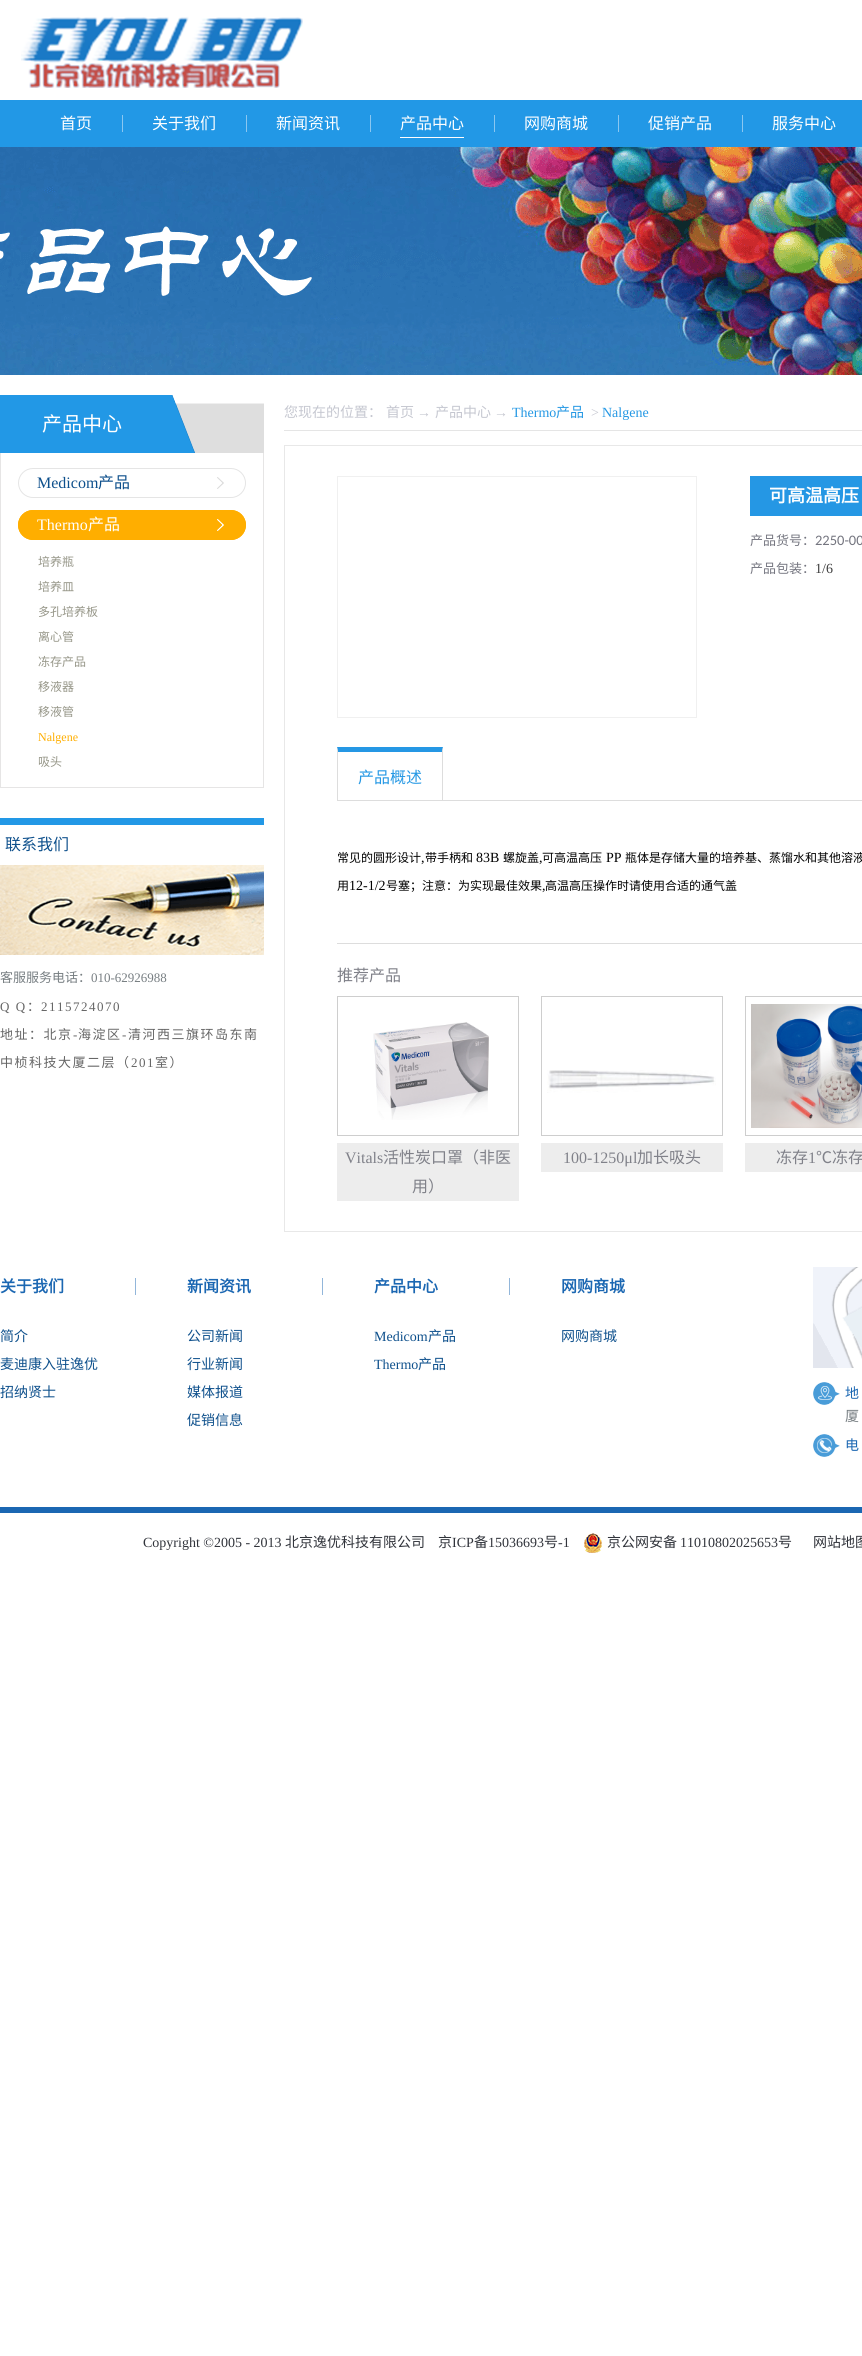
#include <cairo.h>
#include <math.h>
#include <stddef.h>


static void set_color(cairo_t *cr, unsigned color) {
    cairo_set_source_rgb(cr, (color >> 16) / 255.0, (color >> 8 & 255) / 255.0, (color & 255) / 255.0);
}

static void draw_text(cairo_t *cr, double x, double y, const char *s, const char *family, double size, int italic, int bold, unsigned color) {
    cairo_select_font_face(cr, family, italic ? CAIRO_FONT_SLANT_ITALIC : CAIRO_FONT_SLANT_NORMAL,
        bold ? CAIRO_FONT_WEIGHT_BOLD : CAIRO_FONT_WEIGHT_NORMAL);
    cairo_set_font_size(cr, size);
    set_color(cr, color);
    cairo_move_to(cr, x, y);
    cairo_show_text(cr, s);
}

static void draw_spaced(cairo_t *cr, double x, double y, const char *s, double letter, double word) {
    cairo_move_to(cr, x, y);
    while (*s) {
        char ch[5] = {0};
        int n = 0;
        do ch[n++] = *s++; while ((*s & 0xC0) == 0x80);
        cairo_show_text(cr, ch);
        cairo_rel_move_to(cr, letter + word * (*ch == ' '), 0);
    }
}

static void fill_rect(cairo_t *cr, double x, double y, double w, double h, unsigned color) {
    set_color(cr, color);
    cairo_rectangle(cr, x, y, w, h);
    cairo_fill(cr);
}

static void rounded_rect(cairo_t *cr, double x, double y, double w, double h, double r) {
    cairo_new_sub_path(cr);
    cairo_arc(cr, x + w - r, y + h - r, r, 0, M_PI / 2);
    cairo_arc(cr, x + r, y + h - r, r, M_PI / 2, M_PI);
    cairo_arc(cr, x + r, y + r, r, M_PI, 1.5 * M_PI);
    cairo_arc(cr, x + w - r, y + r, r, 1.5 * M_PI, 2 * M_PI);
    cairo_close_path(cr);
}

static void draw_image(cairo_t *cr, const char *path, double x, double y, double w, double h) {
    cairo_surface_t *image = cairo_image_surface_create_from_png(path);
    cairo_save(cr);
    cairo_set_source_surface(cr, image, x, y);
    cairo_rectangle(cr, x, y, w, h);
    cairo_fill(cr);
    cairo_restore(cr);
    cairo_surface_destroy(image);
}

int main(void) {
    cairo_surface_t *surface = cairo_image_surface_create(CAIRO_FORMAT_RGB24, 862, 2356);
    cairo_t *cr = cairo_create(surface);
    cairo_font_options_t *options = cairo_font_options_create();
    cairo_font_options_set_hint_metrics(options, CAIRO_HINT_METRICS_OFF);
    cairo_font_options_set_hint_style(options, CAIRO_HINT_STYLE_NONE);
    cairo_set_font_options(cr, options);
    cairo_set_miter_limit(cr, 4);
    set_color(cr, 0xFFFFFF);
    cairo_paint(cr);
    draw_image(cr, "assets/img1.png", 21, 16, 282, 72);
    fill_rect(cr, 0, 100, 862, 47, 0x2298E6);
    draw_text(cr, 60, 129, "首页", "Noto Sans CJK SC", 16, 0, 0, 0xFFFFFF);
    fill_rect(cr, 122, 115, 1, 17, 0x8AC7F1);
    draw_text(cr, 152, 129, "关于我们", "Noto Sans CJK SC", 16, 0, 0, 0xFFFFFF);
    fill_rect(cr, 246, 115, 1, 17, 0x8AC7F1);
    draw_text(cr, 276, 129, "新闻资讯", "Noto Sans CJK SC", 16, 0, 0, 0xFFFFFF);
    fill_rect(cr, 370, 115, 1, 17, 0x8AC7F1);
    draw_text(cr, 400, 129, "产品中心", "Noto Sans CJK SC", 16, 0, 0, 0xFFFFFF);
    fill_rect(cr, 400, 137, 64, 1, 0xFEFCFD);
    fill_rect(cr, 494, 115, 1, 17, 0x8AC7F1);
    draw_text(cr, 524, 129, "网购商城", "Noto Sans CJK SC", 16, 0, 0, 0xFFFFFF);
    fill_rect(cr, 618, 115, 1, 17, 0x8AC7F1);
    draw_text(cr, 648, 129, "促销产品", "Noto Sans CJK SC", 16, 0, 0, 0xFFFFFF);
    fill_rect(cr, 742, 115, 1, 17, 0x8AC7F1);
    draw_text(cr, 772, 129, "服务中心", "Noto Sans CJK SC", 16, 0, 0, 0xFFFFFF);
    draw_image(cr, "assets/img2.png", 0, 147, 862, 228);
    draw_image(cr, "assets/img3.png", 0, 395, 264, 58);
    draw_text(cr, 42, 431, "产品中心", "Noto Sans CJK SC", 20, 0, 0, 0xFFFFFF);
    fill_rect(cr, 263, 453, 1, 335, 0xE6E5E5);
    fill_rect(cr, 0, 787, 264, 1, 0xE6E5E5);
    fill_rect(cr, 0, 453, 1, 335, 0xE6E5E5);
    draw_image(cr, "assets/img4.png", 217, 477, 7, 12);
    rounded_rect(cr, 18.5, 468.5, 227, 29, 14.5);
    set_color(cr, 0xE5E5E5);
    cairo_set_line_width(cr, 1);
    cairo_stroke(cr);
    draw_text(cr, 37, 488, "Medicom", "Liberation Serif", 16, 0, 0, 0x0E508C);
    draw_text(cr, 98, 488, "产品", "Noto Sans CJK SC", 16, 0, 0, 0x0E508C);
    set_color(cr, 0xFFAE00);
    rounded_rect(cr, 18, 510, 228, 30, 15);
    cairo_fill(cr);
    draw_image(cr, "assets/img5.png", 217, 519, 7, 12);
    rounded_rect(cr, 18.5, 510.5, 227, 29, 14.5);
    cairo_stroke(cr);
    draw_text(cr, 37, 530, "Thermo", "Liberation Serif", 16, 0, 0, 0xFFFFFF);
    draw_text(cr, 88, 530, "产品", "Noto Sans CJK SC", 16, 0, 0, 0xFFFFFF);
    draw_text(cr, 38, 566, "培养瓶", "Noto Sans CJK SC", 12, 0, 0, 0x969688);
    draw_text(cr, 38, 591, "培养皿", "Noto Sans CJK SC", 12, 0, 0, 0x969688);
    draw_text(cr, 38, 616, "多孔培养板", "Noto Sans CJK SC", 12, 0, 0, 0x969688);
    draw_text(cr, 38, 641, "离心管", "Noto Sans CJK SC", 12, 0, 0, 0x969688);
    draw_text(cr, 38, 666, "冻存产品", "Noto Sans CJK SC", 12, 0, 0, 0x969688);
    draw_text(cr, 38, 691, "移液器", "Noto Sans CJK SC", 12, 0, 0, 0x969688);
    draw_text(cr, 38, 716, "移液管", "Noto Sans CJK SC", 12, 0, 0, 0x969688);
    draw_text(cr, 38, 741, "Nalgene", "Liberation Serif", 12, 0, 0, 0xFFAE00);
    draw_text(cr, 38, 766, "吸头", "Noto Sans CJK SC", 12, 0, 0, 0x969688);
    fill_rect(cr, 0, 818, 264, 7, 0x2298E6);
    draw_text(cr, 5, 850, "联系我们", "Noto Sans CJK SC", 16, 0, 0, 0x0E508C);
    draw_image(cr, "assets/img6.png", 0, 865, 264, 90);
    draw_text(cr, 0, 982, "客服服务电话：", "Noto Sans CJK SC", 13, 0, 0, 0x777E82);
    draw_text(cr, 91, 982, "010-62926988", "Liberation Serif", 13, 0, 0, 0x777E82);
    set_color(cr, 0x656565);
    draw_spaced(cr, 0, 1011, "Q Q", 1.5, 0);
    cairo_select_font_face(cr, "Noto Sans CJK SC", CAIRO_FONT_SLANT_NORMAL, CAIRO_FONT_WEIGHT_NORMAL);
    draw_spaced(cr, 27, 1011, "：", 1.5, 0);
    cairo_select_font_face(cr, "Liberation Serif", CAIRO_FONT_SLANT_NORMAL, CAIRO_FONT_WEIGHT_NORMAL);
    draw_spaced(cr, 41, 1011, "2115724070", 1.5, 0);
    cairo_select_font_face(cr, "Noto Sans CJK SC", CAIRO_FONT_SLANT_NORMAL, CAIRO_FONT_WEIGHT_NORMAL);
    draw_spaced(cr, 0, 1039, "地址：北京", 1.5, 0);
    cairo_select_font_face(cr, "Liberation Serif", CAIRO_FONT_SLANT_NORMAL, CAIRO_FONT_WEIGHT_NORMAL);
    draw_spaced(cr, 73, 1039, "-", 1.5, 0);
    cairo_select_font_face(cr, "Noto Sans CJK SC", CAIRO_FONT_SLANT_NORMAL, CAIRO_FONT_WEIGHT_NORMAL);
    draw_spaced(cr, 78, 1039, "海淀区", 1.5, 0);
    cairo_select_font_face(cr, "Liberation Serif", CAIRO_FONT_SLANT_NORMAL, CAIRO_FONT_WEIGHT_NORMAL);
    draw_spaced(cr, 122, 1039, "-", 1.5, 0);
    cairo_select_font_face(cr, "Noto Sans CJK SC", CAIRO_FONT_SLANT_NORMAL, CAIRO_FONT_WEIGHT_NORMAL);
    draw_spaced(cr, 128, 1039, "清河西三旗环岛东南", 1.5, 0);
    draw_spaced(cr, 0, 1067, "中桢科技大厦二层（", 1.5, 0);
    cairo_select_font_face(cr, "Liberation Serif", CAIRO_FONT_SLANT_NORMAL, CAIRO_FONT_WEIGHT_NORMAL);
    draw_spaced(cr, 131, 1067, "201", 1.5, 0);
    cairo_select_font_face(cr, "Noto Sans CJK SC", CAIRO_FONT_SLANT_NORMAL, CAIRO_FONT_WEIGHT_NORMAL);
    draw_spaced(cr, 155, 1067, "室）", 1.5, 0);
    fill_rect(cr, 284, 430, 578, 1, 0xE5E5E5);
    draw_text(cr, 284, 417, "您现在的位置：", "Noto Sans CJK SC", 14, 0, 0, 0xC5C7D0);
    draw_text(cr, 386, 417, "首页", "Noto Sans CJK SC", 14, 0, 0, 0xC5C7D0);
    draw_text(cr, 417, 417, "→", "Liberation Serif", 14, 0, 0, 0xC5C7D0);
    draw_text(cr, 435, 417, "产品中心", "Noto Sans CJK SC", 14, 0, 0, 0xC5C7D0);
    draw_text(cr, 494, 417, "→", "Liberation Serif", 14, 0, 0, 0xC5C7D0);
    draw_text(cr, 512, 417, "Thermo", "Liberation Serif", 14, 0, 0, 0x2598E4);
    draw_text(cr, 556, 417, "产品", "Noto Sans CJK SC", 14, 0, 0, 0x2598E4);
    draw_text(cr, 591, 417, ">", "Liberation Serif", 14, 0, 0, 0xC5C7D0);
    draw_text(cr, 602, 417, "Nalgene", "Liberation Serif", 14, 0, 0, 0x2598E4);
    cairo_rectangle(cr, 284.5, 445.5, 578, 786);
    set_color(cr, 0xE8E8E8);
    cairo_stroke(cr);
    cairo_rectangle(cr, 337.5, 476.5, 359, 241);
    set_color(cr, 0xF0F0F0);
    cairo_stroke(cr);
    fill_rect(cr, 750, 476, 112, 40, 0x2597E4);
    draw_text(cr, 769, 502, "可高温高压", "Noto Sans CJK SC", 18, 0, 1, 0xFFFFFF);
    draw_text(cr, 750, 545, "产品货号：", "Noto Sans CJK SC", 13, 0, 0, 0x74757F);
    draw_text(cr, 815, 545, "2250-00", "Carlito", 14.5, 0, 0, 0x74757F);
    draw_text(cr, 750, 573, "产品包装：", "Noto Sans CJK SC", 13, 0, 0, 0x74757F);
    draw_text(cr, 815, 573, "1/6", "Liberation Serif", 14, 0, 0, 0x3E3E3E);
    fill_rect(cr, 337, 800, 525, 1, 0xDDDDDD);
    set_color(cr, 0x2597E4);
    cairo_new_path(cr);
    cairo_move_to(cr, 337, 747);
    cairo_line_to(cr, 443, 747);
    cairo_line_to(cr, 442, 752);
    cairo_line_to(cr, 338, 752);
    cairo_close_path(cr);
    cairo_fill(cr);
    set_color(cr, 0xDDDDDD);
    cairo_new_path(cr);
    cairo_move_to(cr, 443, 747);
    cairo_line_to(cr, 443, 800);
    cairo_line_to(cr, 442, 800);
    cairo_line_to(cr, 442, 752);
    cairo_close_path(cr);
    cairo_fill(cr);
    cairo_new_path(cr);
    cairo_move_to(cr, 337, 800);
    cairo_line_to(cr, 337, 747);
    cairo_line_to(cr, 338, 752);
    cairo_line_to(cr, 338, 800);
    cairo_close_path(cr);
    cairo_fill(cr);
    draw_text(cr, 358, 783, "产品概述", "Noto Sans CJK SC", 16, 0, 0, 0x2598E4);
    fill_rect(cr, 337, 943, 525, 1, 0xDDDDDD);
    draw_text(cr, 337, 862, "常见的圆形设计", "Noto Sans CJK SC", 12, 0, 0, 0x000000);
    draw_text(cr, 425, 862, "带手柄和", "Noto Sans CJK SC", 12, 0, 0, 0x000000);
    draw_text(cr, 476, 862, "83B", "Liberation Serif", 14, 0, 0, 0x000000);
    draw_text(cr, 503, 862, "螺旋盖", "Noto Sans CJK SC", 12, 0, 0, 0x000000);
    draw_text(cr, 542, 862, "可高温高压", "Noto Sans CJK SC", 12, 0, 0, 0x000000);
    draw_text(cr, 606, 862, "PP", "Liberation Serif", 14, 0, 0, 0x000000);
    draw_text(cr, 625, 862, "瓶体是存储大量的培养基、蒸馏水和其他溶液", "Noto Sans CJK SC", 12, 0, 0, 0x000000);
    draw_text(cr, 421, 862, ",", "Liberation Serif", 14, 0, 0, 0x000000);
    draw_text(cr, 539, 862, ",", "Liberation Serif", 14, 0, 0, 0x000000);
    draw_text(cr, 337, 890, "用", "Noto Sans CJK SC", 12, 0, 0, 0x000000);
    draw_text(cr, 349, 890, "12-1/2", "Liberation Serif", 14, 0, 0, 0x000000);
    draw_text(cr, 386, 890, "号塞；注意：为实现最佳效果", "Noto Sans CJK SC", 12, 0, 0, 0x000000);
    draw_text(cr, 542, 890, ",", "Liberation Serif", 14, 0, 0, 0x000000);
    draw_text(cr, 545, 890, "高温高压操作时请使用合适的通气盖", "Noto Sans CJK SC", 12, 0, 0, 0x000000);
    draw_text(cr, 337, 981, "推荐产品", "Noto Sans CJK SC", 16, 0, 0, 0x808189);
    cairo_rectangle(cr, 337.5, 996.5, 181, 139);
    set_color(cr, 0xCECECE);
    cairo_stroke(cr);
    draw_image(cr, "assets/img7.png", 373, 1022, 116, 98);
    fill_rect(cr, 337, 1143, 182, 58, 0xEDEDED);
    draw_text(cr, 345, 1163, "Vitals", "Liberation Serif", 16, 0, 0, 0x808189);
    draw_text(cr, 383, 1163, "活性炭口罩（非医", "Noto Sans CJK SC", 16, 0, 0, 0x808189);
    draw_text(cr, 412, 1192, "用）", "Noto Sans CJK SC", 16, 0, 0, 0x808189);
    cairo_rectangle(cr, 541.5, 996.5, 181, 139);
    set_color(cr, 0xCECECE);
    cairo_stroke(cr);
    draw_image(cr, "assets/img8.png", 547, 1070, 169, 23);
    fill_rect(cr, 541, 1143, 182, 29, 0xEDEDED);
    draw_text(cr, 563, 1163, "100-1250μl", "Liberation Serif", 16, 0, 0, 0x808189);
    draw_text(cr, 637, 1163, "加长吸头", "Noto Sans CJK SC", 16, 0, 0, 0x808189);
    cairo_rectangle(cr, 745.5, 996.5, 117, 139);
    set_color(cr, 0xCECECE);
    cairo_stroke(cr);
    draw_image(cr, "assets/img9.png", 751, 1004, 111, 124);
    fill_rect(cr, 745, 1143, 117, 29, 0xEDEDED);
    draw_text(cr, 776, 1163, "冻存", "Noto Sans CJK SC", 16, 0, 0, 0x808189);
    draw_text(cr, 808, 1163, "1", "Liberation Serif", 16, 0, 0, 0x808189);
    draw_text(cr, 816, 1163, "℃冻存", "Noto Sans CJK SC", 16, 0, 0, 0x808189);
    draw_text(cr, 0, 1292, "关于我们", "Noto Sans CJK SC", 16, 0, 1, 0x1B67B2);
    draw_text(cr, 0, 1341, "简介", "Noto Sans CJK SC", 14, 0, 0, 0x0E508C);
    draw_text(cr, 0, 1369, "麦迪康入驻逸优", "Noto Sans CJK SC", 14, 0, 0, 0x0E508C);
    draw_text(cr, 0, 1397, "招纳贤士", "Noto Sans CJK SC", 14, 0, 0, 0x0E508C);
    fill_rect(cr, 135, 1278, 1, 17, 0x92B6DA);
    draw_text(cr, 187, 1292, "新闻资讯", "Noto Sans CJK SC", 16, 0, 1, 0x1B67B2);
    draw_text(cr, 187, 1341, "公司新闻", "Noto Sans CJK SC", 14, 0, 0, 0x0E508C);
    draw_text(cr, 187, 1369, "行业新闻", "Noto Sans CJK SC", 14, 0, 0, 0x0E508C);
    draw_text(cr, 187, 1397, "媒体报道", "Noto Sans CJK SC", 14, 0, 0, 0x0E508C);
    draw_text(cr, 187, 1425, "促销信息", "Noto Sans CJK SC", 14, 0, 0, 0x0E508C);
    fill_rect(cr, 322, 1278, 1, 17, 0x92B6DA);
    draw_text(cr, 374, 1292, "产品中心", "Noto Sans CJK SC", 16, 0, 1, 0x1B67B2);
    draw_text(cr, 374, 1341, "Medicom", "Liberation Serif", 14, 0, 0, 0x0E508C);
    draw_text(cr, 428, 1341, "产品", "Noto Sans CJK SC", 14, 0, 0, 0x0E508C);
    draw_text(cr, 374, 1369, "Thermo", "Liberation Serif", 14, 0, 0, 0x0E508C);
    draw_text(cr, 418, 1369, "产品", "Noto Sans CJK SC", 14, 0, 0, 0x0E508C);
    fill_rect(cr, 509, 1278, 1, 17, 0x92B6DA);
    draw_text(cr, 561, 1292, "网购商城", "Noto Sans CJK SC", 16, 0, 1, 0x1B67B2);
    draw_text(cr, 561, 1341, "网购商城", "Noto Sans CJK SC", 14, 0, 0, 0x0E508C);
    draw_image(cr, "assets/img10.png", 813, 1267, 49, 101);
    draw_image(cr, "assets/img11.png", 813, 1382, 27, 23);
    draw_text(cr, 845, 1398, "地", "Noto Sans CJK SC", 14, 0, 0, 0x1B67B2);
    draw_text(cr, 845, 1421, "厦", "Noto Sans CJK SC", 14, 0, 0, 0x777E82);
    draw_image(cr, "assets/img12.png", 813, 1434, 27, 23);
    draw_text(cr, 845, 1450, "电", "Noto Sans CJK SC", 14, 0, 0, 0x1B67B2);
    fill_rect(cr, 0, 1507, 862, 6, 0x1B67B2);
    draw_text(cr, 143, 1547, "Copyright ©2005 - 2013", "Liberation Serif", 14, 0, 0, 0x31343B);
    draw_text(cr, 285, 1547, "北京逸优科技有限公司", "Noto Sans CJK SC", 14, 0, 0, 0x31343B);
    draw_text(cr, 438, 1547, "京", "Noto Sans CJK SC", 14, 0, 0, 0x31343B);
    draw_text(cr, 452, 1547, "ICP", "Liberation Serif", 14, 0, 0, 0x31343B);
    draw_text(cr, 474, 1547, "备", "Noto Sans CJK SC", 14, 0, 0, 0x31343B);
    draw_text(cr, 488, 1547, "15036693", "Liberation Serif", 14, 0, 0, 0x31343B);
    draw_text(cr, 544, 1547, "号", "Noto Sans CJK SC", 14, 0, 0, 0x31343B);
    draw_text(cr, 558, 1547, "-1", "Liberation Serif", 14, 0, 0, 0x31343B);
    draw_image(cr, "assets/img13.png", 584, 1533, 18, 20);
    draw_text(cr, 607, 1547, "京公网安备", "Noto Sans CJK SC", 14, 0, 0, 0x31343B);
    draw_text(cr, 680, 1547, "11010802025653", "Liberation Serif", 14, 0, 0, 0x31343B);
    draw_text(cr, 778, 1547, "号", "Noto Sans CJK SC", 14, 0, 0, 0x31343B);
    draw_text(cr, 813, 1547, "网站地图", "Noto Sans CJK SC", 14, 0, 0, 0x31343B);
    cairo_surface_write_to_png(surface, "output.png");
    cairo_font_options_destroy(options);
    cairo_destroy(cr);
    cairo_surface_destroy(surface);
    return 0;
}
